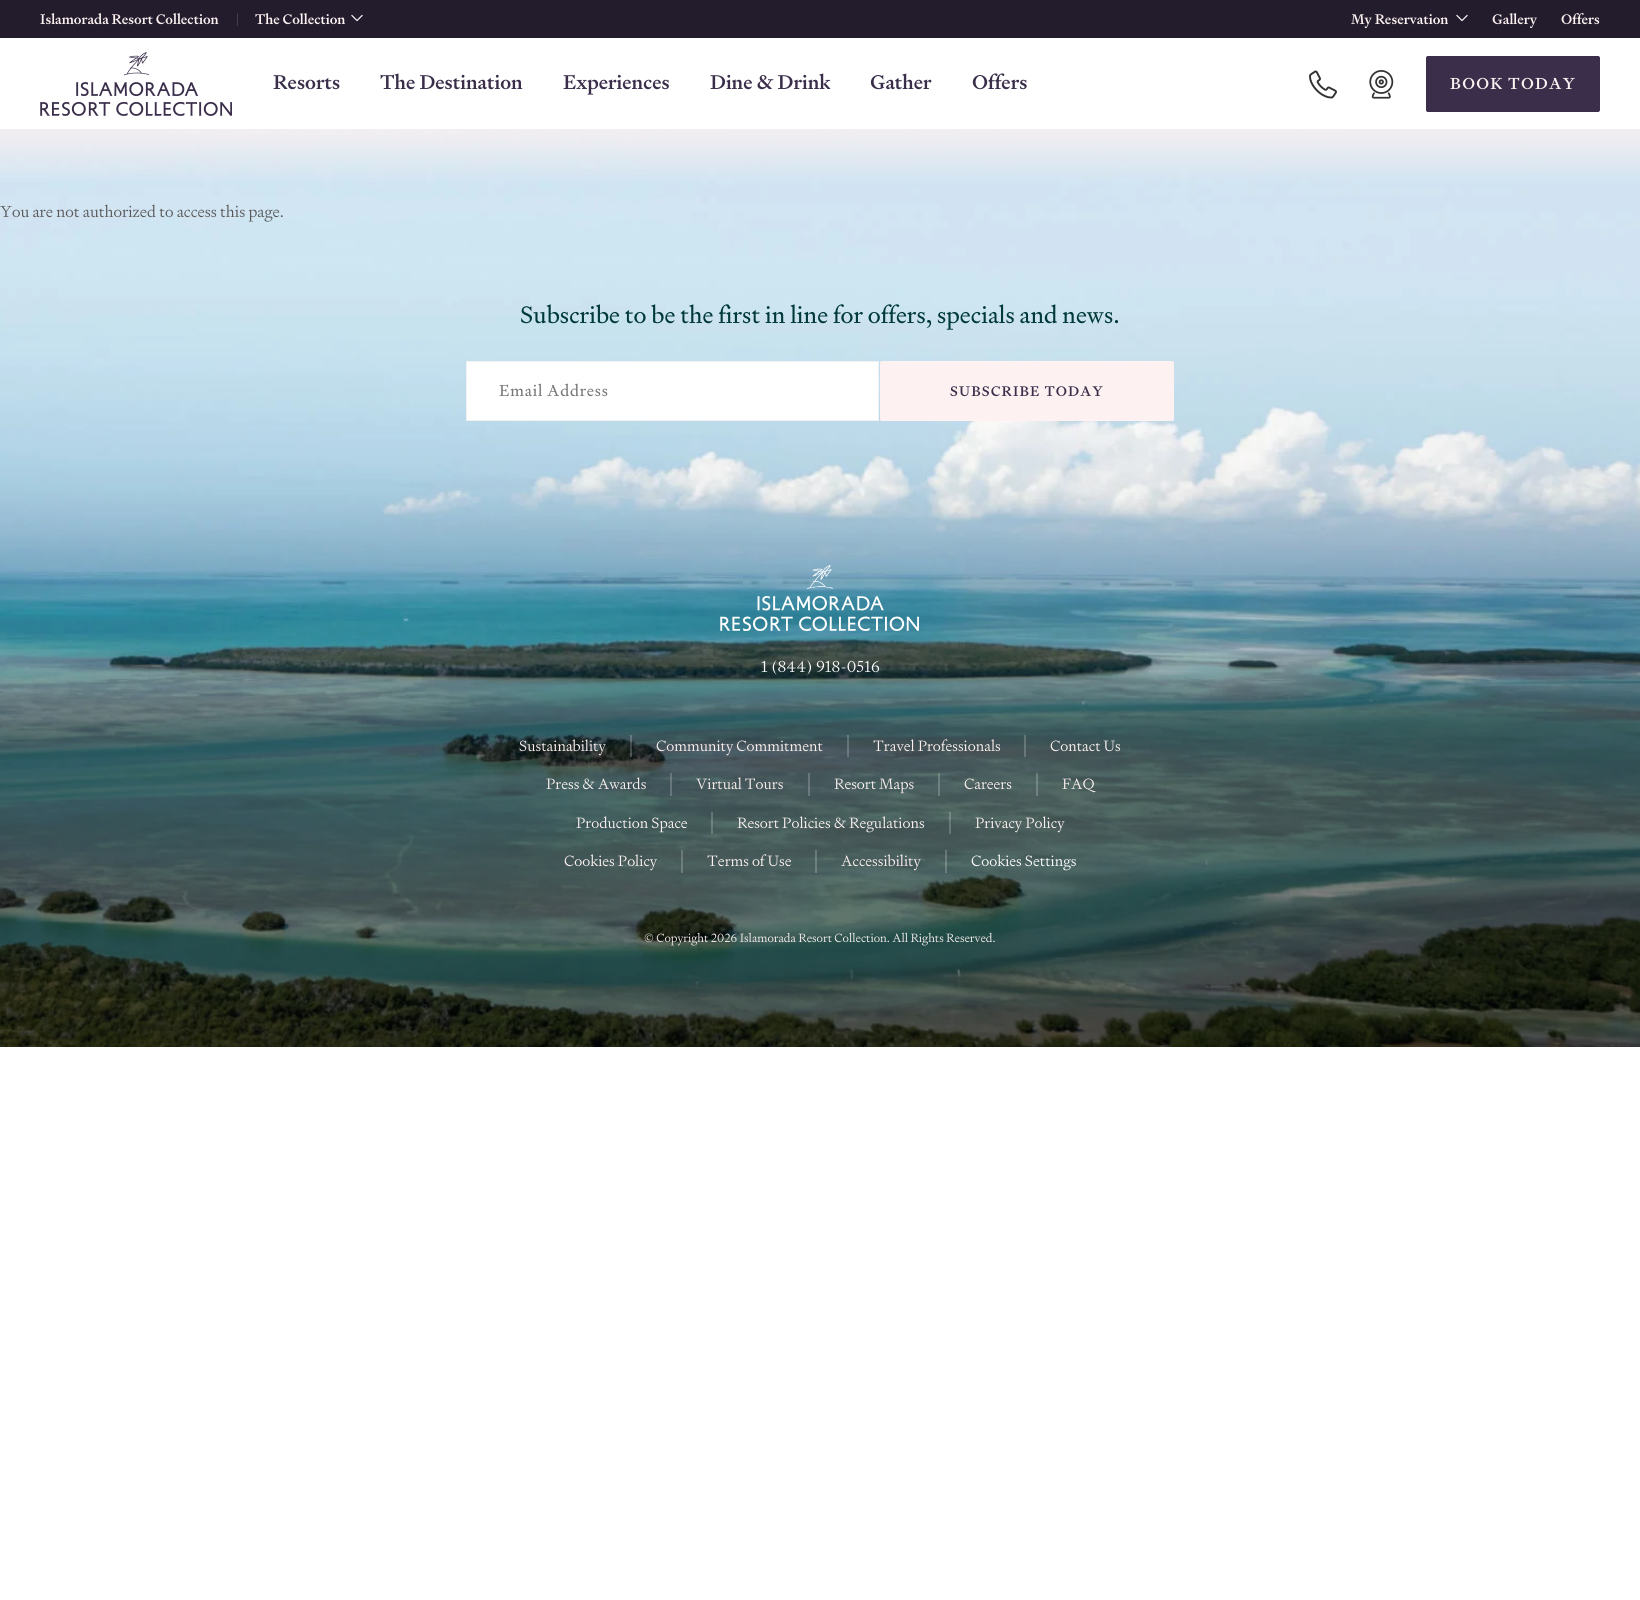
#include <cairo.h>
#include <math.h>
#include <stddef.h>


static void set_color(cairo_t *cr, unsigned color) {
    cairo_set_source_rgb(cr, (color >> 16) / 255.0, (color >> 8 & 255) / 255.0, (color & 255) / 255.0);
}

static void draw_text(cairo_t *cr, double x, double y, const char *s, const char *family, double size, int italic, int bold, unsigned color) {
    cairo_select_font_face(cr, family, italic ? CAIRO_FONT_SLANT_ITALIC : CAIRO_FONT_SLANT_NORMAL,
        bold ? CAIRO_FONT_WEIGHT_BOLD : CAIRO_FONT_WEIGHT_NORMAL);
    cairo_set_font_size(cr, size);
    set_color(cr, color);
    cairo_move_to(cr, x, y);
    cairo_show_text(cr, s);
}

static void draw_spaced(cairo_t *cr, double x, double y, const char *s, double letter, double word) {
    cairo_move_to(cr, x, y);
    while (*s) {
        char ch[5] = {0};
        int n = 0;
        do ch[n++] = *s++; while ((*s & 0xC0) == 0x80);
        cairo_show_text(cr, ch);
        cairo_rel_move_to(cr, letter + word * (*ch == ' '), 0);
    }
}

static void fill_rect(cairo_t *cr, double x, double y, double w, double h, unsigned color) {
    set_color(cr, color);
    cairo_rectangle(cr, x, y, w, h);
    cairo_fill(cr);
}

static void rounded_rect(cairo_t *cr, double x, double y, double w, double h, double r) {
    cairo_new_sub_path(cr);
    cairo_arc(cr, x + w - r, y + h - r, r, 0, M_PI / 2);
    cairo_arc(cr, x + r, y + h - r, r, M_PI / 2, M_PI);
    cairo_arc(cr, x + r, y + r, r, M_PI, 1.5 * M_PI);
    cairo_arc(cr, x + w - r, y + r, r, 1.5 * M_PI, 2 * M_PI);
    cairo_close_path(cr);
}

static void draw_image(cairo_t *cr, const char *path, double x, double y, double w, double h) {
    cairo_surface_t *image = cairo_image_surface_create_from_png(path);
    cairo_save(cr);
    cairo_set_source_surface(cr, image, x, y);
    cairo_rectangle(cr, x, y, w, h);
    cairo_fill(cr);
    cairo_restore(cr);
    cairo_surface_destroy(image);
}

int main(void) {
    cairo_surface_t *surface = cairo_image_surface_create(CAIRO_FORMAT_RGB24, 1640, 1600);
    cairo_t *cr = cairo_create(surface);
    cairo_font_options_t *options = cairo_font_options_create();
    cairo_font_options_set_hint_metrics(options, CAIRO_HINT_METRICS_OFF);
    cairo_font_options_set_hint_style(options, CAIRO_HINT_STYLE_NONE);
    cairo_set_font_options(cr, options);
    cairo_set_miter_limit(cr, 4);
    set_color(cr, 0xFFFFFF);
    cairo_paint(cr);
    fill_rect(cr, 0, 0, 1640, 38, 0x231C2D);
    draw_text(cr, 40, 24, "Islamorada Resort Collection", "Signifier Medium", 14, 0, 0, 0xFDF2F1);
    draw_text(cr, 235, 24, "|", "Signifier Light", 14, 0, 0, 0x5A5562);
    draw_text(cr, 255, 24, "The Collection", "Signifier Medium", 14, 0, 0, 0xFDF2F1);
    draw_image(cr, "assets/img1.png", 351, 14, 12, 8);
    draw_text(cr, 1351, 24, "My Reservation", "Signifier Medium", 14, 0, 0, 0xFDF2F1);
    draw_image(cr, "assets/img1.png", 1456, 14, 12, 8);
    draw_text(cr, 1492, 24, "Gallery", "Signifier Medium", 14, 0, 0, 0xFDF2F1);
    draw_text(cr, 1561, 24, "Offers", "Signifier Medium", 14, 0, 0, 0xFDF2F1);
    draw_image(cr, "assets/img2.png", 40, 52, 192, 64);
    draw_text(cr, 273, 89, "Resorts", "Signifier Medium", 20, 0, 0, 0x3A2E4B);
    draw_text(cr, 380, 89, "The Destination", "Signifier Medium", 20, 0, 0, 0x3A2E4B);
    draw_text(cr, 563, 89, "Experiences", "Signifier Medium", 20, 0, 0, 0x3A2E4B);
    draw_text(cr, 710, 89, "Dine & Drink", "Signifier Medium", 20, 0, 0, 0x3A2E4B);
    draw_text(cr, 870, 89, "Gather", "Signifier Medium", 20, 0, 0, 0x3A2E4B);
    draw_text(cr, 972, 89, "Offers", "Signifier Medium", 20, 0, 0, 0x3A2E4B);
    draw_image(cr, "assets/img3.png", 1309, 70, 28, 29);
    draw_image(cr, "assets/img4.png", 1369, 70, 25, 29);
    rounded_rect(cr, 1426, 56, 174, 56, 2);
    cairo_fill(cr);
    cairo_set_font_size(cr, 16);
    set_color(cr, 0xFDF2F1);
    draw_spaced(cr, 1450, 89, "BOOK TODAY", 1.25, 0);
    draw_image(cr, "assets/img5.png", 0, 129, 1640, 918);
    draw_text(cr, 0, 217, "You are not authorized to access this page.", "Signifier Light", 16, 0, 0, 0x585858);
    draw_text(cr, 520, 323, "Subscribe to be the first in line for offers, specials and news.", "Signifier", 24, 0, 0, 0x003A38);
    set_color(cr, 0xFFFFFF);
    cairo_rectangle(cr, 466.5, 361.5, 412, 59);
    cairo_fill_preserve(cr);
    set_color(cr, 0xF0F1F1);
    cairo_set_line_width(cr, 1);
    cairo_stroke(cr);
    cairo_set_font_size(cr, 16);
    set_color(cr, 0x757575);
    draw_spaced(cr, 499, 396, "Email Address", 0.75, 0);
    set_color(cr, 0xFDF2F1);
    rounded_rect(cr, 880, 361, 294, 60, 2);
    cairo_fill(cr);
    cairo_select_font_face(cr, "Signifier Medium", CAIRO_FONT_SLANT_NORMAL, CAIRO_FONT_WEIGHT_NORMAL);
    cairo_set_font_size(cr, 14);
    set_color(cr, 0x3A2E4B);
    draw_spaced(cr, 950, 396, "SUBSCRIBE TODAY", 1.1, 0);
    draw_image(cr, "assets/img6.png", 720, 565, 199, 66);
    draw_text(cr, 761, 672, "1 (844) 918-0516", "Signifier Light", 16, 0, 0, 0xFFFFFF);
    cairo_set_source_rgba(cr, 1, 1, 1, 0.2);
    cairo_rectangle(cr, 630, 735, 2, 22);
    cairo_fill(cr);
    draw_text(cr, 519, 751, "Sustainability", "Signifier Light", 15, 0, 0, 0xFDF2F1);
    cairo_set_source_rgba(cr, 1, 1, 1, 0.2);
    cairo_rectangle(cr, 847, 735, 2, 22);
    cairo_fill(cr);
    draw_text(cr, 656, 751, "Community Commitment", "Signifier Light", 15, 0, 0, 0xFDF2F1);
    cairo_set_source_rgba(cr, 1, 1, 1, 0.2);
    cairo_rectangle(cr, 1024, 735, 2, 22);
    cairo_fill(cr);
    draw_text(cr, 873, 751, "Travel Professionals", "Signifier Light", 15, 0, 0, 0xFDF2F1);
    draw_text(cr, 1050, 751, "Contact Us", "Signifier Light", 15, 0, 0, 0xFDF2F1);
    cairo_set_source_rgba(cr, 1, 1, 1, 0.2);
    cairo_rectangle(cr, 670, 773, 2, 23);
    cairo_fill(cr);
    draw_text(cr, 546, 789, "Press & Awards", "Signifier Light", 15, 0, 0, 0xFDF2F1);
    cairo_set_source_rgba(cr, 1, 1, 1, 0.2);
    cairo_rectangle(cr, 808, 773, 2, 23);
    cairo_fill(cr);
    draw_text(cr, 696, 789, "Virtual Tours", "Signifier Light", 15, 0, 0, 0xFDF2F1);
    cairo_set_source_rgba(cr, 1, 1, 1, 0.2);
    cairo_rectangle(cr, 938, 773, 2, 23);
    cairo_fill(cr);
    draw_text(cr, 834, 789, "Resort Maps", "Signifier Light", 15, 0, 0, 0xFDF2F1);
    cairo_set_source_rgba(cr, 1, 1, 1, 0.2);
    cairo_rectangle(cr, 1036, 773, 2, 23);
    cairo_fill(cr);
    draw_text(cr, 964, 789, "Careers", "Signifier Light", 15, 0, 0, 0xFDF2F1);
    draw_text(cr, 1062, 789, "FAQ", "Signifier Light", 15, 0, 0, 0xFDF2F1);
    cairo_set_source_rgba(cr, 1, 1, 1, 0.2);
    cairo_rectangle(cr, 711, 812, 2, 22);
    cairo_fill(cr);
    draw_text(cr, 576, 828, "Production Space", "Signifier Light", 15, 0, 0, 0xFDF2F1);
    cairo_set_source_rgba(cr, 1, 1, 1, 0.2);
    cairo_rectangle(cr, 949, 812, 2, 22);
    cairo_fill(cr);
    draw_text(cr, 737, 828, "Resort Policies & Regulations", "Signifier Light", 15, 0, 0, 0xFDF2F1);
    draw_text(cr, 975, 828, "Privacy Policy", "Signifier Light", 15, 0, 0, 0xFDF2F1);
    cairo_set_source_rgba(cr, 1, 1, 1, 0.2);
    cairo_rectangle(cr, 681, 850, 2, 23);
    cairo_fill(cr);
    draw_text(cr, 564, 866, "Cookies Policy", "Signifier Light", 15, 0, 0, 0xFDF2F1);
    cairo_set_source_rgba(cr, 1, 1, 1, 0.2);
    cairo_rectangle(cr, 815, 850, 2, 23);
    cairo_fill(cr);
    draw_text(cr, 707, 866, "Terms of Use", "Signifier Light", 15, 0, 0, 0xFDF2F1);
    cairo_set_source_rgba(cr, 1, 1, 1, 0.2);
    cairo_rectangle(cr, 945, 850, 2, 23);
    cairo_fill(cr);
    draw_text(cr, 841, 866, "Accessibility", "Signifier Light", 15, 0, 0, 0xFDF2F1);
    draw_text(cr, 971, 866, "Cookies Settings", "Signifier Light", 15, 0, 0, 0xFFFFFF);
    draw_text(cr, 644, 942, "© Copyright 2026 Islamorada Resort Collection. All Rights Reserved.", "Signifier Light", 12, 0, 0, 0xFDF2F1);
    cairo_surface_write_to_png(surface, "output.png");
    cairo_font_options_destroy(options);
    cairo_destroy(cr);
    cairo_surface_destroy(surface);
    return 0;
}
